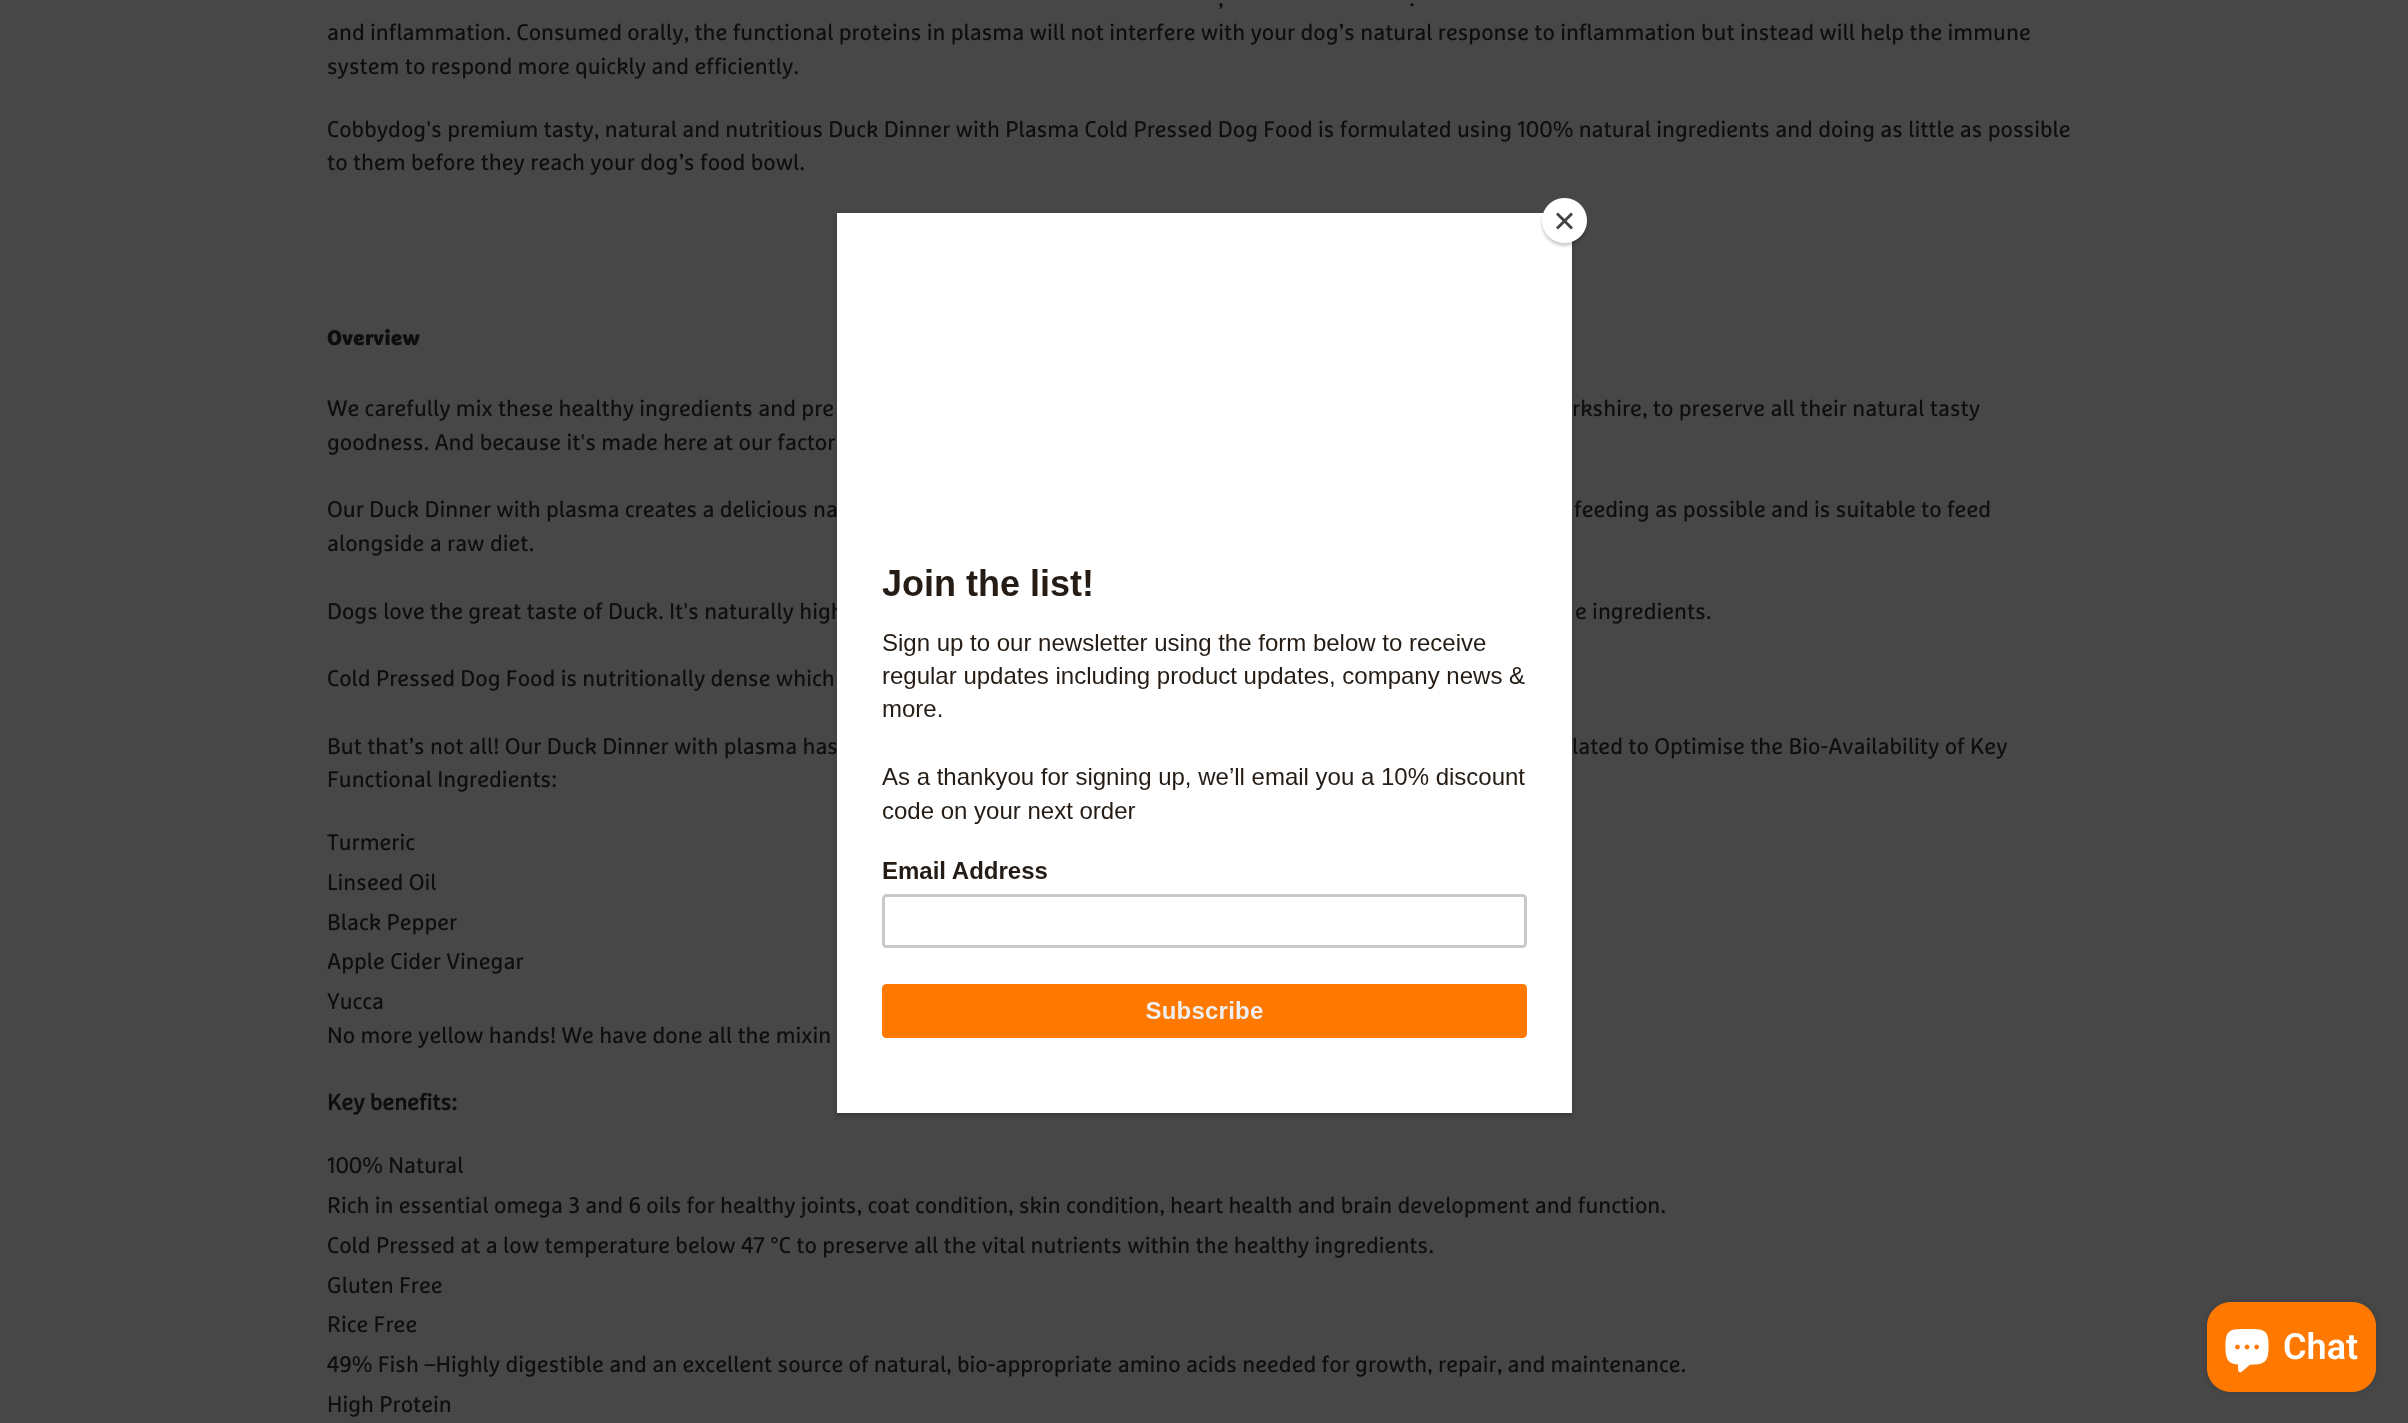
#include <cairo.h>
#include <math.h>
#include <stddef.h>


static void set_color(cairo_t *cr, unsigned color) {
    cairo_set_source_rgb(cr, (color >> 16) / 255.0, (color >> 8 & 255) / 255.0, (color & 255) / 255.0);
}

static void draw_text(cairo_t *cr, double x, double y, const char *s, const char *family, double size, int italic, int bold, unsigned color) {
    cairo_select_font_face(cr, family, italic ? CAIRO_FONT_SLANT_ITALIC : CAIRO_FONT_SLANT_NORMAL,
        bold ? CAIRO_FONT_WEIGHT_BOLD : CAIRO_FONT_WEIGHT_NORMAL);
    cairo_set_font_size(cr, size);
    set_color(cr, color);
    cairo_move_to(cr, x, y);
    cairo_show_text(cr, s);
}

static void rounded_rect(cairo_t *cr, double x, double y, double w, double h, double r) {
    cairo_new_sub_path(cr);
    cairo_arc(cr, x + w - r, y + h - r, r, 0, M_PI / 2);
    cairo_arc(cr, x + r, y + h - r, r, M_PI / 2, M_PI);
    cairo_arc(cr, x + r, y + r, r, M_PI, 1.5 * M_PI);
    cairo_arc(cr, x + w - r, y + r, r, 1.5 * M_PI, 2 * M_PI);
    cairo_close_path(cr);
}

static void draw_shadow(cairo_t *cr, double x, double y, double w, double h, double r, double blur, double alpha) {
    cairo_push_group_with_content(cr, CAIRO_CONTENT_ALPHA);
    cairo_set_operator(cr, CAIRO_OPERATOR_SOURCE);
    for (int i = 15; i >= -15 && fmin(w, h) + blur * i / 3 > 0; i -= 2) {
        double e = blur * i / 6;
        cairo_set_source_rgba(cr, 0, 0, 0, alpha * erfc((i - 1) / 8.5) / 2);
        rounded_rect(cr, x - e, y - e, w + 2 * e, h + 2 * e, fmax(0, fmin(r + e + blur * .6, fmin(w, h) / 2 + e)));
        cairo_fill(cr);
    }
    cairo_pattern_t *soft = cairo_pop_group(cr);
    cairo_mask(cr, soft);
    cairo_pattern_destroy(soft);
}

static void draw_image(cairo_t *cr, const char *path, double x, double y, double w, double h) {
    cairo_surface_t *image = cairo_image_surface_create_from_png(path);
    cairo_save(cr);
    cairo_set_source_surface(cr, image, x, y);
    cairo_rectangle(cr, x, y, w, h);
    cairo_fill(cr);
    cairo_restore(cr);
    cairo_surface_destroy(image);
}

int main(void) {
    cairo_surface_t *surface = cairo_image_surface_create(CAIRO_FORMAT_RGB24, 2408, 1423);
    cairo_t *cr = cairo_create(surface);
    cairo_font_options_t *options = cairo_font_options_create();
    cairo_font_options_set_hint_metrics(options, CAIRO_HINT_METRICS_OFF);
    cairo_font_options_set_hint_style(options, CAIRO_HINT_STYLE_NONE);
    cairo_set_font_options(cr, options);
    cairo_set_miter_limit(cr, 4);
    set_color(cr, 0x474747);
    cairo_paint(cr);
    draw_text(cr, 1218, 6, ",", "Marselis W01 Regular", 22.5, 0, 0, 0x0E0E0E);
    draw_text(cr, 1409, 6, ".", "Marselis W01 Regular", 22.5, 0, 0, 0x0E0E0E);
    draw_text(cr, 327, 40, "and inflammation. Consumed orally, the functional proteins in plasma will not interfere with your dog’s natural response to inflammation but instead will help the immune", "Marselis W01 Regular", 22.5, 0, 0, 0x0E0E0E);
    draw_text(cr, 327, 74, "system to respond more quickly and efficiently.", "Marselis W01 Regular", 22.5, 0, 0, 0x0E0E0E);
    draw_text(cr, 327, 137, "Cobbydog's premium tasty, natural and nutritious Duck Dinner with Plasma Cold Pressed Dog Food is formulated using 100% natural ingredients and doing as little as possible", "Marselis W01 Regular", 22.5, 0, 0, 0x0E0E0E);
    draw_text(cr, 327, 170, "to them before they reach your dog’s food bowl.", "Marselis W01 Regular", 22.5, 0, 0, 0x0E0E0E);
    draw_text(cr, 327, 345, "Overview", "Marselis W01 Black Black", 21, 0, 0, 0x0E0E0E);
    draw_text(cr, 327, 416, "We carefully mix these healthy ingredients and pre", "Marselis W01 Regular", 22.5, 0, 0, 0x0E0E0E);
    draw_text(cr, 1572, 416, "rkshire, to preserve all their natural tasty", "Marselis W01 Regular", 22.5, 0, 0, 0x0E0E0E);
    draw_text(cr, 327, 450, "goodness. And because it's made here at our factor", "Marselis W01 Regular", 22.5, 0, 0, 0x0E0E0E);
    draw_text(cr, 327, 517, "Our Duck Dinner with plasma creates a delicious na", "Marselis W01 Regular", 22.5, 0, 0, 0x0E0E0E);
    draw_text(cr, 1574, 517, "feeding as possible and is suitable to feed", "Marselis W01 Regular", 22.5, 0, 0, 0x0E0E0E);
    draw_text(cr, 327, 551, "alongside a raw diet.", "Marselis W01 Regular", 22.5, 0, 0, 0x0E0E0E);
    draw_text(cr, 327, 619, "Dogs love the great taste of Duck. It's naturally high", "Marselis W01 Regular", 22.5, 0, 0, 0x0E0E0E);
    draw_text(cr, 1575, 619, "e ingredients.", "Marselis W01 Regular", 22.5, 0, 0, 0x0E0E0E);
    draw_text(cr, 327, 686, "Cold Pressed Dog Food is nutritionally dense which", "Marselis W01 Regular", 22.5, 0, 0, 0x0E0E0E);
    draw_text(cr, 327, 754, "But that’s not all! Our Duck Dinner with plasma has", "Marselis W01 Regular", 22.5, 0, 0, 0x0E0E0E);
    draw_text(cr, 1572, 754, "lated to Optimise the Bio-Availability of Key", "Marselis W01 Regular", 22.5, 0, 0, 0x0E0E0E);
    draw_text(cr, 327, 787, "Functional Ingredients:", "Marselis W01 Regular", 22.5, 0, 0, 0x0E0E0E);
    draw_text(cr, 327, 850, "Turmeric", "Marselis W01 Regular", 22.5, 0, 0, 0x0E0E0E);
    draw_text(cr, 327, 890, "Linseed Oil", "Marselis W01 Regular", 22.5, 0, 0, 0x0E0E0E);
    draw_text(cr, 327, 930, "Black Pepper", "Marselis W01 Regular", 22.5, 0, 0, 0x0E0E0E);
    draw_text(cr, 327, 969, "Apple Cider Vinegar", "Marselis W01 Regular", 22.5, 0, 0, 0x0E0E0E);
    draw_text(cr, 327, 1009, "Yucca", "Marselis W01 Regular", 22.5, 0, 0, 0x0E0E0E);
    draw_text(cr, 327, 1043, "No more yellow hands! We have done all the mixin", "Marselis W01 Regular", 22.5, 0, 0, 0x0E0E0E);
    draw_text(cr, 327, 1110, "Key benefits:", "Marselis W01 Regular", 22.5, 0, 1, 0x0E0E0E);
    draw_text(cr, 327, 1173, "100% Natural", "Marselis W01 Regular", 22.5, 0, 0, 0x0E0E0E);
    draw_text(cr, 327, 1213, "Rich in essential omega 3 and 6 oils for healthy joints, coat condition, skin condition, heart health and brain development and function.", "Marselis W01 Regular", 22.5, 0, 0, 0x0E0E0E);
    draw_text(cr, 327, 1253, "Cold Pressed at a low temperature below 47 °C to preserve all the vital nutrients within the healthy ingredients.", "Marselis W01 Regular", 22.5, 0, 0, 0x0E0E0E);
    draw_text(cr, 327, 1293, "Gluten Free", "Marselis W01 Regular", 22.5, 0, 0, 0x0E0E0E);
    draw_text(cr, 327, 1332, "Rice Free", "Marselis W01 Regular", 22.5, 0, 0, 0x0E0E0E);
    draw_text(cr, 327, 1372, "49% Fish –Highly digestible and an excellent source of natural, bio-appropriate amino acids needed for growth, repair, and maintenance.", "Marselis W01 Regular", 22.5, 0, 0, 0x0E0E0E);
    draw_text(cr, 327, 1412, "High Protein", "Marselis W01 Regular", 22.5, 0, 0, 0x0E0E0E);
    set_color(cr, 0x000000);
    draw_shadow(cr, 837, 216, 735, 900, 0, 3, 0.2);
    draw_image(cr, "assets/img1.png", 837, 213, 735, 900);
    draw_shadow(cr, 1542, 201, 45, 45, 22.5, 1.5, 0.2);
    set_color(cr, 0xFFFFFF);
    cairo_arc(cr, 1564.5, 220.5, 22.5, 0, 2 * M_PI);
    cairo_fill(cr);
    set_color(cr, 0x414141);
    cairo_new_path(cr);
    cairo_move_to(cr, 1571, 212.5);
    cairo_line_to(cr, 1573, 214.5);
    cairo_line_to(cr, 1558, 229.5);
    cairo_line_to(cr, 1556, 227.5);
    cairo_close_path(cr);
    cairo_fill(cr);
    cairo_new_path(cr);
    cairo_move_to(cr, 1556, 214.5);
    cairo_line_to(cr, 1558, 212.5);
    cairo_line_to(cr, 1573, 227.5);
    cairo_line_to(cr, 1571, 229.5);
    cairo_close_path(cr);
    cairo_fill(cr);
    set_color(cr, 0x000000);
    draw_shadow(cr, 2207, 1302, 169, 90, 24, 4, 0.15);
    set_color(cr, 0xFF7900);
    rounded_rect(cr, 2207, 1302, 169, 90, 24);
    cairo_fill(cr);
    draw_image(cr, "assets/img2.png", 2225, 1329, 44, 44);
    draw_text(cr, 2283, 1359, "Chat", "Roboto SemiBold", 36, 0, 0, 0xFFFFFF);
    cairo_surface_write_to_png(surface, "output.png");
    cairo_font_options_destroy(options);
    cairo_destroy(cr);
    cairo_surface_destroy(surface);
    return 0;
}
